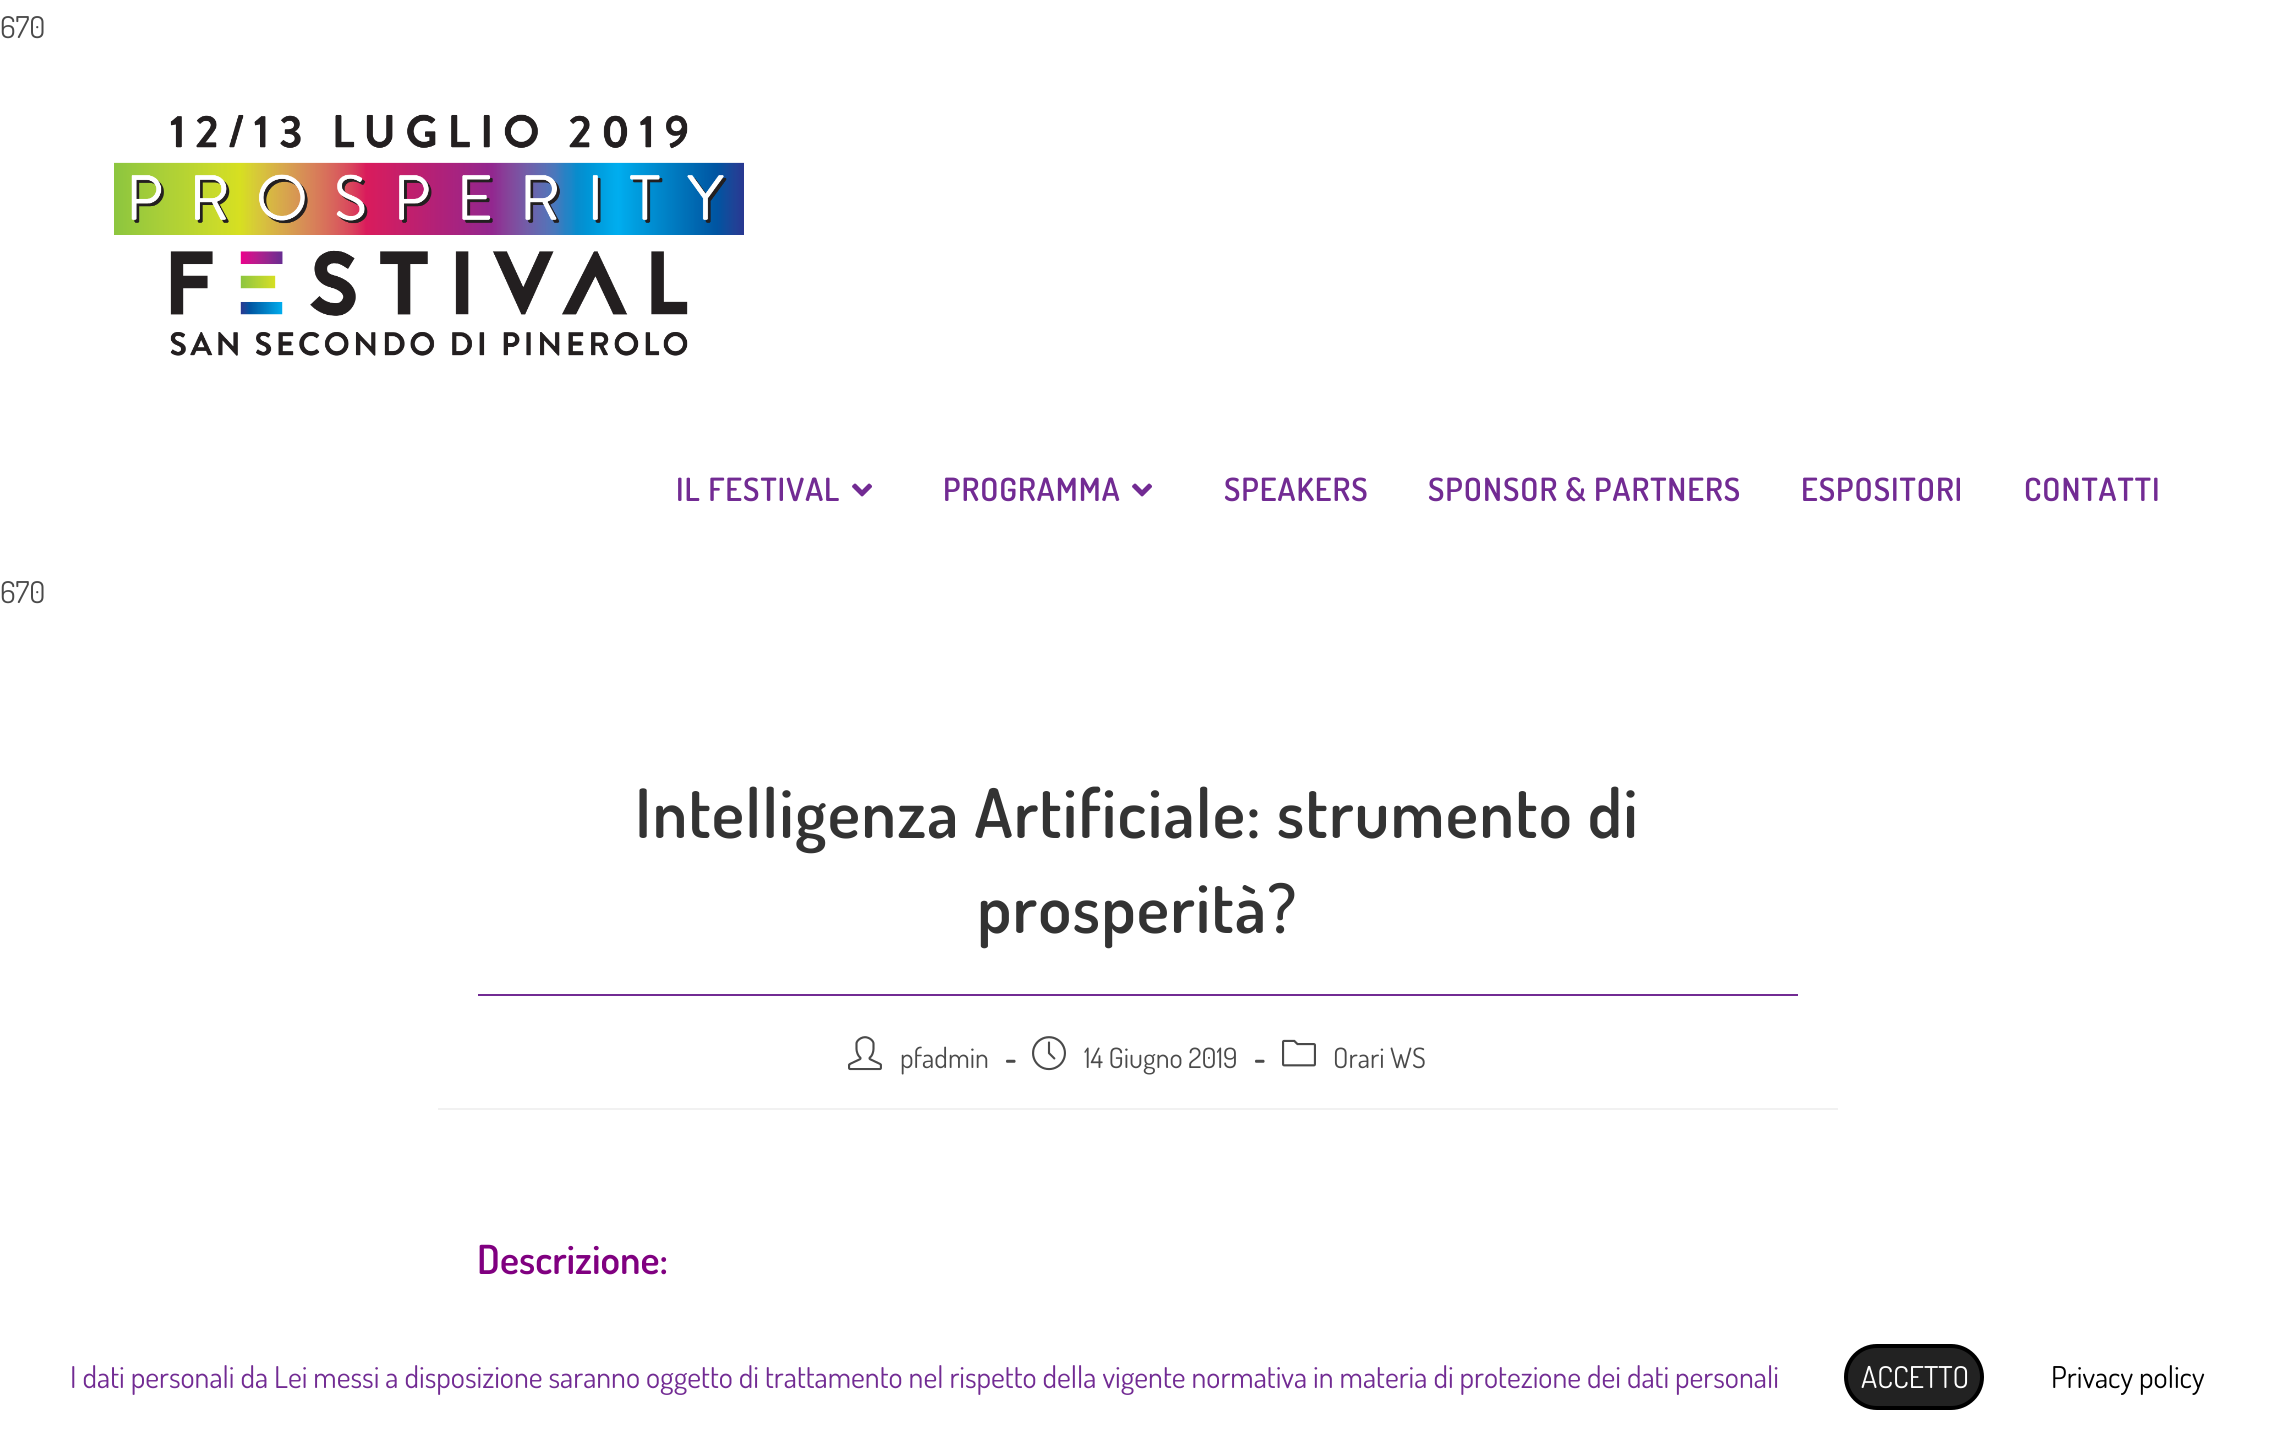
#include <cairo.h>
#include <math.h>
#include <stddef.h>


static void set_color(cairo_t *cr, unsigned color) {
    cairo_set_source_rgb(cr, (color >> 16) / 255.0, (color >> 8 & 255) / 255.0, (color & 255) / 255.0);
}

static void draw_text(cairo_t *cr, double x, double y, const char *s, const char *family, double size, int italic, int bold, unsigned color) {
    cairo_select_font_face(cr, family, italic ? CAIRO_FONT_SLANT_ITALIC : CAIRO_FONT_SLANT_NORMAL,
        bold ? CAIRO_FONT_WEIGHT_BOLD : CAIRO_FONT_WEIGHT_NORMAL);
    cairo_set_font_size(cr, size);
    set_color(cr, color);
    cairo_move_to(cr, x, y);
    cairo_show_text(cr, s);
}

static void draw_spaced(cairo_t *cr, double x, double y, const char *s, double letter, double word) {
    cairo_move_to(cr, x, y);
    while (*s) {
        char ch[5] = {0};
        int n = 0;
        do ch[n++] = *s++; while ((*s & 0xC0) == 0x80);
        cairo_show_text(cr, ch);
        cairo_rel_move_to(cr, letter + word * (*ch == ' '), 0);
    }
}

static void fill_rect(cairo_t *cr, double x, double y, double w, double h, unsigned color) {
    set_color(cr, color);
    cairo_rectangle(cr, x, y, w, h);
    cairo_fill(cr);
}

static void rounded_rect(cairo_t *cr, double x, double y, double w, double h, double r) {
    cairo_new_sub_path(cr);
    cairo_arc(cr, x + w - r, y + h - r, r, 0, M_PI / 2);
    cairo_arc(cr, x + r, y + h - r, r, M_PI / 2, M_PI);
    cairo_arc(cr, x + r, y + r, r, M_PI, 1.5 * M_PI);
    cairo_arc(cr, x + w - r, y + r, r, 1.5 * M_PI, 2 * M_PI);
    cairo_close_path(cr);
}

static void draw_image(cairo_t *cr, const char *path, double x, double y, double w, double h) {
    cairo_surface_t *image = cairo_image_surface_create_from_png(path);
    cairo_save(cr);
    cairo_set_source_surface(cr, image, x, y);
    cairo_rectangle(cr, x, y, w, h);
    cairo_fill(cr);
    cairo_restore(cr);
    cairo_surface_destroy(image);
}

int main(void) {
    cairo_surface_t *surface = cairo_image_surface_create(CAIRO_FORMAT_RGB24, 2274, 1430);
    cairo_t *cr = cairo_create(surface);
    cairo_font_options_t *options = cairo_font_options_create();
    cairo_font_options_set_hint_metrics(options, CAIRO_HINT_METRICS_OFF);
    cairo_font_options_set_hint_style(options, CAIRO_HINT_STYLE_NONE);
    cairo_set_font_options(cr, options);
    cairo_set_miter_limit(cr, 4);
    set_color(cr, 0xFFFFFF);
    cairo_paint(cr);
    draw_text(cr, 0, 38, "670", "Dosis", 30, 0, 0, 0x4A4A4A);
    draw_image(cr, "assets/img1.png", 114, 114, 630, 242);
    cairo_select_font_face(cr, "Dosis SemiBold", CAIRO_FONT_SLANT_NORMAL, CAIRO_FONT_WEIGHT_NORMAL);
    cairo_set_font_size(cr, 32);
    set_color(cr, 0x722B93);
    draw_spaced(cr, 676, 501, "IL FESTIVAL", 1, 0);
    draw_image(cr, "assets/img2.png", 852, 483, 20, 14);
    draw_spaced(cr, 943, 501, "PROGRAMMA", 1, 0);
    draw_image(cr, "assets/img2.png", 1132, 483, 20, 14);
    draw_spaced(cr, 1224, 501, "SPEAKERS", 1, 0);
    draw_spaced(cr, 1428, 501, "SPONSOR & PARTNERS", 1, 0);
    draw_spaced(cr, 1801, 501, "ESPOSITORI", 1, 0);
    draw_spaced(cr, 2024, 501, "CONTATTI", 1, 0);
    draw_text(cr, 0, 603, "670", "Dosis", 30, 0, 0, 0x4A4A4A);
    fill_rect(cr, 478, 994, 1320, 2, 0x722B93);
    cairo_select_font_face(cr, "Dosis SemiBold", CAIRO_FONT_SLANT_NORMAL, CAIRO_FONT_WEIGHT_NORMAL);
    cairo_set_font_size(cr, 68);
    set_color(cr, 0x333333);
    draw_spaced(cr, 635, 838, "Intelligenza Artificiale: strumento di", 1.2, 0);
    draw_spaced(cr, 977, 933, "prosperità?", 1.2, 0);
    fill_rect(cr, 438, 1108, 1400, 2, 0xF1F1F1);
    draw_image(cr, "assets/img3.png", 848, 1036, 34, 35);
    draw_text(cr, 900, 1068, "pfadmin", "Dosis", 28, 0, 0, 0x4A4A4A);
    draw_text(cr, 1005, 1068, "-", "Dosis", 28, 0, 1, 0x4A4A4A);
    draw_image(cr, "assets/img4.png", 1032, 1036, 34, 35);
    draw_text(cr, 1084, 1068, "14 Giugno 2019", "Dosis", 28, 0, 0, 0x4A4A4A);
    draw_text(cr, 1254, 1068, "-", "Dosis", 28, 0, 1, 0x4A4A4A);
    draw_image(cr, "assets/img5.png", 1282, 1039, 34, 28);
    draw_text(cr, 1333, 1068, "Orari WS", "Dosis", 28, 0, 0, 0x4A4A4A);
    draw_text(cr, 477, 1274, "Descrizione:", "Dosis SemiBold", 40, 0, 0, 0x800080);
    draw_text(cr, 70, 1388, "I dati personali da Lei messi a disposizione saranno oggetto di trattamento nel rispetto della vigente normativa in materia di protezione dei dati personali", "Dosis", 30, 0, 0, 0x722B93);
    set_color(cr, 0x222222);
    rounded_rect(cr, 1846, 1346, 136, 62, 31);
    cairo_fill_preserve(cr);
    set_color(cr, 0x000000);
    cairo_set_line_width(cr, 4);
    cairo_stroke(cr);
    draw_text(cr, 1861, 1388, "ACCETTO", "Dosis", 30, 0, 0, 0xFFFFFF);
    draw_text(cr, 2051, 1388, "Privacy policy", "Dosis", 30, 0, 0, 0x000000);
    cairo_surface_write_to_png(surface, "output.png");
    cairo_font_options_destroy(options);
    cairo_destroy(cr);
    cairo_surface_destroy(surface);
    return 0;
}
